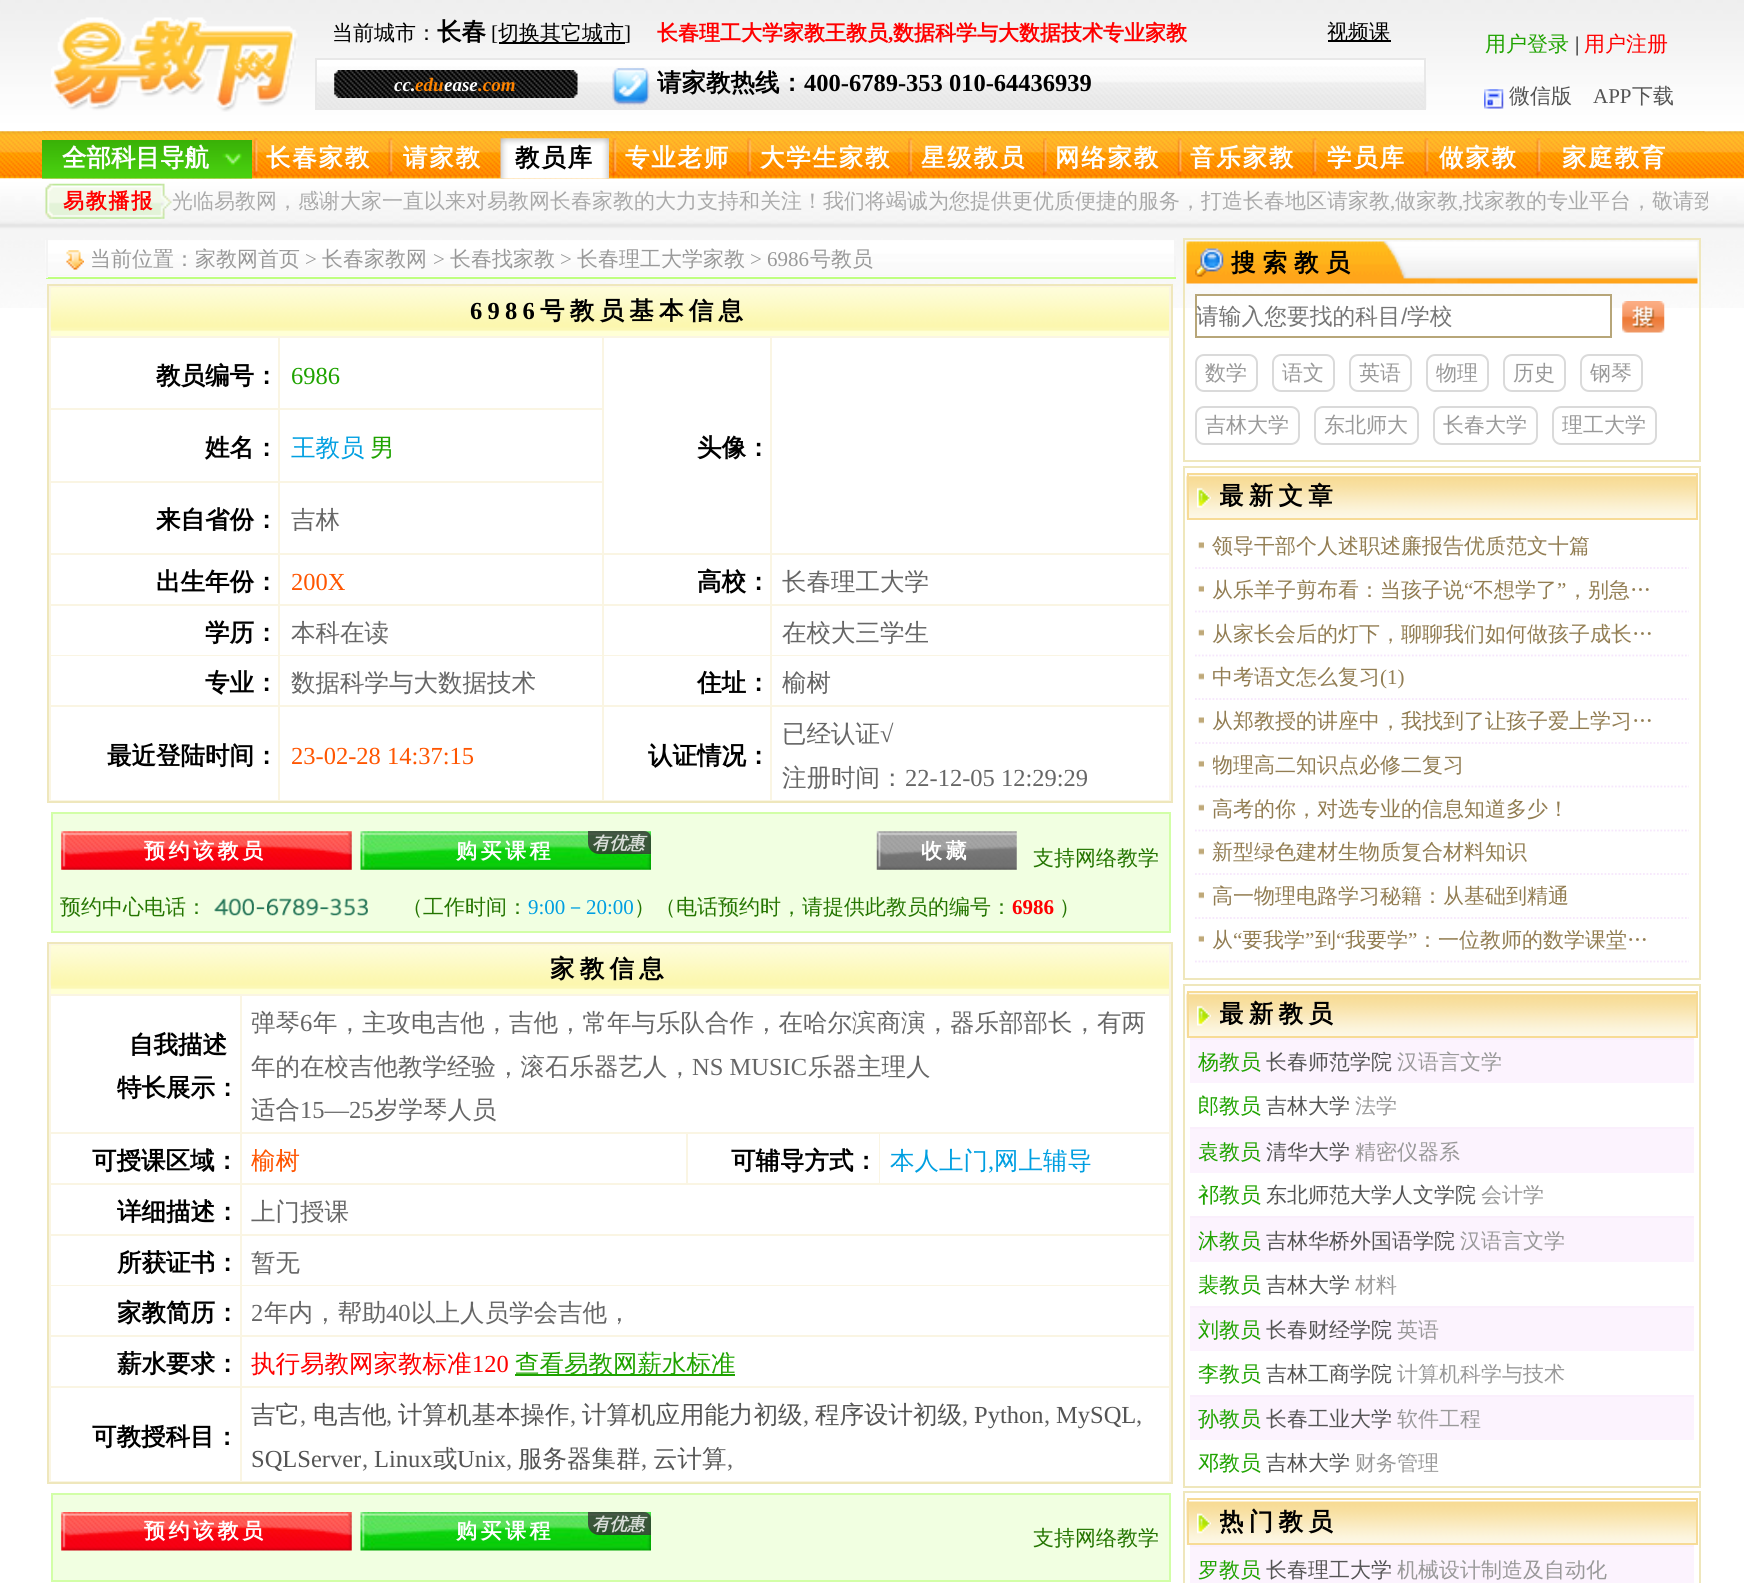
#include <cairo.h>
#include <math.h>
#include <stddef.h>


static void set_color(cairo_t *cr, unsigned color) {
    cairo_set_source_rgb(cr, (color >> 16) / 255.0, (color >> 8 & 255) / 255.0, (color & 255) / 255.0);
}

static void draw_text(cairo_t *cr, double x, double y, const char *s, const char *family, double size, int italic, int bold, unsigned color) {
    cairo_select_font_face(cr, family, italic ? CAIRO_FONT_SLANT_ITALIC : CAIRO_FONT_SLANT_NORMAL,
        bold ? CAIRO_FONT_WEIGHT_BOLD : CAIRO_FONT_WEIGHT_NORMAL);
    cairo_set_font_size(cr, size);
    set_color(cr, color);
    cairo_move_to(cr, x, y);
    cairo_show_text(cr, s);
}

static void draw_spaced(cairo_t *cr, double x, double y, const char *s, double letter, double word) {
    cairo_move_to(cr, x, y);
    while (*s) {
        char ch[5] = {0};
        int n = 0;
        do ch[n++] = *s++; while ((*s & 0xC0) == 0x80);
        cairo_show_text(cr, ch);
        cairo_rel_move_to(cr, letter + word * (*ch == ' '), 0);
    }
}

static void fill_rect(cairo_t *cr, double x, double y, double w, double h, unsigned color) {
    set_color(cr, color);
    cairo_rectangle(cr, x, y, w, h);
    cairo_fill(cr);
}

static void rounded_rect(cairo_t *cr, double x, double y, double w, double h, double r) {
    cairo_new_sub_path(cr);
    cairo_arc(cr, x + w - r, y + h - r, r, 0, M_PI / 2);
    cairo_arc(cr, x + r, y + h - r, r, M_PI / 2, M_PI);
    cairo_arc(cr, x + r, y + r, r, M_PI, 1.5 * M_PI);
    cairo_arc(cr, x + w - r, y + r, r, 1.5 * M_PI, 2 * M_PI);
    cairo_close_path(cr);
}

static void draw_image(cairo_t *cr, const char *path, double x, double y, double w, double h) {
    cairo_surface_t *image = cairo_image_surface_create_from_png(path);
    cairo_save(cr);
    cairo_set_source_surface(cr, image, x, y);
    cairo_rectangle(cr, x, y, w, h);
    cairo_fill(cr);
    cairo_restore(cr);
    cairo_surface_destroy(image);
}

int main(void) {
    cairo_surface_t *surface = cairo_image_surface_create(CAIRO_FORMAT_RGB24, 1744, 1583);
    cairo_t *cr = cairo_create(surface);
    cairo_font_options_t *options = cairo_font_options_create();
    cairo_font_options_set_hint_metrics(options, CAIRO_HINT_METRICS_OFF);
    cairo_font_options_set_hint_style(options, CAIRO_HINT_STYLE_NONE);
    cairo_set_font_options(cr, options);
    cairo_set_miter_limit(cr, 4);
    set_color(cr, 0xFFFFFF);
    cairo_paint(cr);
    draw_image(cr, "assets/img1.png", 0, 0, 1744, 308);
    draw_image(cr, "assets/img2.png", 51, 17, 247, 95);
    draw_text(cr, 332, 40, "当前城市：", "WenQuanYi Zen Hei Medium", 21, 0, 0, 0x000000);
    draw_text(cr, 437, 40, "长春", "WenQuanYi Zen Hei", 24.5, 0, 1, 0x000000);
    draw_text(cr, 491, 40, "[", "Liberation Serif", 21, 0, 0, 0x000000);
    fill_rect(cr, 499, 42, 126, 2, 0x000000);
    draw_text(cr, 498, 40, "切换其它城市", "WenQuanYi Zen Hei Medium", 21, 0, 0, 0x000000);
    draw_text(cr, 624, 40, "]", "Liberation Serif", 21, 0, 0, 0x000000);
    draw_text(cr, 657, 40, "长春理工大学家教王教员", "WenQuanYi Zen Hei", 21, 0, 1, 0xFF0000);
    draw_text(cr, 888, 40, ",", "Liberation Serif", 21, 0, 1, 0xFF0000);
    draw_text(cr, 893, 40, "数据科学与大数据技术专业家教", "WenQuanYi Zen Hei", 21, 0, 1, 0xFF0000);
    fill_rect(cr, 1328, 40, 63, 2, 0x000000);
    draw_text(cr, 1327, 39, "视频课", "WenQuanYi Zen Hei Medium", 21, 0, 0, 0x000000);
    draw_image(cr, "assets/img3.png", 317, 59, 1110, 50);
    cairo_rectangle(cr, 316, 59, 1109, 50);
    set_color(cr, 0xE8E8E8);
    cairo_stroke(cr);
    draw_image(cr, "assets/img4.png", 334, 70, 244, 28);
    draw_text(cr, 394, 91, "cc.", "Liberation Serif", 19, 1, 1, 0xFFFFFF);
    draw_text(cr, 415, 91, "edu", "Liberation Serif", 19, 1, 1, 0xFF8400);
    draw_text(cr, 444, 91, "ease", "Liberation Serif", 19, 1, 1, 0xFFFFFF);
    draw_text(cr, 478, 91, ".com", "Liberation Serif", 19, 1, 1, 0xFF8400);
    draw_image(cr, "assets/img5.png", 612, 68, 38, 37);
    draw_text(cr, 657, 91, "请家教热线：", "WenQuanYi Zen Hei", 24.5, 0, 1, 0x000000);
    draw_text(cr, 804, 91, "400-6789-353 010-64436939", "Liberation Serif", 24.5, 0, 1, 0x000000);
    draw_text(cr, 1485, 51, "用户登录", "WenQuanYi Zen Hei Medium", 21, 0, 0, 0x1FA300);
    draw_text(cr, 1575, 51, "|", "Liberation Serif", 21, 0, 0, 0x000000);
    draw_text(cr, 1584, 51, "用户注册", "WenQuanYi Zen Hei Medium", 21, 0, 0, 0xFF0000);
    draw_image(cr, "assets/img6.png", 1484, 89, 20, 20);
    draw_text(cr, 1509, 103, "微信版", "WenQuanYi Zen Hei Medium", 21, 0, 0, 0x545454);
    draw_text(cr, 1593, 103, "APP", "Liberation Serif", 21, 0, 0, 0x545454);
    draw_text(cr, 1632, 103, "下载", "WenQuanYi Zen Hei Medium", 21, 0, 0, 0x545454);
    draw_image(cr, "assets/img7.png", 0, 131, 1744, 48);
    draw_image(cr, "assets/img8.png", 42, 131, 1663, 48);
    draw_image(cr, "assets/img9.png", 42, 140, 210, 39);
    draw_text(cr, 62, 166, "全部科目导航", "WenQuanYi Zen Hei", 24.5, 0, 1, 0xFFFFFF);
    draw_image(cr, "assets/img10.png", 253, 138, 5, 38);
    draw_spaced(cr, 266, 166, "长春家教", 1.75, 0);
    draw_image(cr, "assets/img11.png", 388, 138, 5, 38);
    draw_spaced(cr, 403, 166, "请家教", 1.75, 0);
    draw_image(cr, "assets/img12.png", 500, 138, 5, 38);
    draw_image(cr, "assets/img13.png", 500, 138, 109, 41);
    set_color(cr, 0x000000);
    draw_spaced(cr, 515, 166, "教员库", 1.75, 0);
    draw_image(cr, "assets/img14.png", 612, 138, 5, 38);
    set_color(cr, 0xFFFFFF);
    draw_spaced(cr, 625, 166, "专业老师", 1.75, 0);
    draw_image(cr, "assets/img15.png", 747, 138, 5, 38);
    draw_spaced(cr, 760, 166, "大学生家教", 1.75, 0);
    draw_image(cr, "assets/img16.png", 908, 138, 5, 38);
    draw_spaced(cr, 921, 166, "星级教员", 1.75, 0);
    draw_image(cr, "assets/img17.png", 1043, 138, 4, 38);
    draw_spaced(cr, 1055, 166, "网络家教", 1.75, 0);
    draw_image(cr, "assets/img18.png", 1177, 138, 5, 38);
    draw_spaced(cr, 1190, 166, "音乐家教", 1.75, 0);
    draw_image(cr, "assets/img11.png", 1312, 138, 5, 38);
    draw_spaced(cr, 1327, 166, "学员库", 1.75, 0);
    draw_image(cr, "assets/img12.png", 1424, 138, 5, 38);
    draw_spaced(cr, 1439, 166, "做家教", 1.75, 0);
    draw_image(cr, "assets/img14.png", 1536, 138, 5, 38);
    draw_spaced(cr, 1562, 166, "家庭教育", 1.75, 0);
    draw_image(cr, "assets/img19.png", 45, 183, 127, 36);
    cairo_set_font_size(cr, 21);
    set_color(cr, 0xFF0000);
    draw_spaced(cr, 63, 208, "易教播报", 1.75, 0);
    draw_text(cr, 172, 208, "光临易教网，感谢大家一直以来对易教网长春家教的大力支持和关注！我们将竭诚为您提供更优质便捷的服务，打造长春地区请家教", "WenQuanYi Zen Hei Medium", 21, 0, 0, 0xAAAAAA);
    draw_text(cr, 1390, 208, ",", "Liberation Serif", 21, 0, 0, 0xAAAAAA);
    draw_text(cr, 1395, 208, "做家教", "WenQuanYi Zen Hei Medium", 21, 0, 0, 0xAAAAAA);
    draw_text(cr, 1458, 208, ",", "Liberation Serif", 21, 0, 0, 0xAAAAAA);
    cairo_save(cr);
    cairo_rectangle(cr, 172, 187, 1536, 30);
    cairo_clip(cr);
    draw_text(cr, 1463, 208, "找家教的专业平台，敬请致", "WenQuanYi Zen Hei Medium", 21, 0, 0, 0xAAAAAA);
    cairo_restore(cr);
    draw_image(cr, "assets/img20.png", 45, 240, 1129, 38);
    fill_rect(cr, 1174, 256, 2, 22, 0xF4F4F4);
    fill_rect(cr, 46, 277, 1130, 2, 0xBFFF80);
    fill_rect(cr, 46, 238, 2, 40, 0xF4F4F4);
    draw_image(cr, "assets/img21.png", 66, 250, 18, 20);
    draw_text(cr, 90, 266, "当前位置：家教网首页", "WenQuanYi Zen Hei Medium", 21, 0, 0, 0x999999);
    draw_text(cr, 305, 266, ">", "Liberation Serif", 21, 0, 0, 0x999999);
    draw_text(cr, 322, 266, "长春家教网", "WenQuanYi Zen Hei Medium", 21, 0, 0, 0x999999);
    draw_text(cr, 433, 266, ">", "Liberation Serif", 21, 0, 0, 0x999999);
    draw_text(cr, 450, 266, "长春找家教", "WenQuanYi Zen Hei Medium", 21, 0, 0, 0x999999);
    draw_text(cr, 560, 266, ">", "Liberation Serif", 21, 0, 0, 0x999999);
    draw_text(cr, 577, 266, "长春理工大学家教", "WenQuanYi Zen Hei Medium", 21, 0, 0, 0x999999);
    draw_text(cr, 750, 266, "> 6986", "Liberation Serif", 21, 0, 0, 0x999999);
    draw_text(cr, 810, 266, "号教员", "WenQuanYi Zen Hei Medium", 21, 0, 0, 0x999999);
    set_color(cr, 0xFAF5E3);
    cairo_rectangle(cr, 48, 285, 1124, 517);
    cairo_fill_preserve(cr);
    set_color(cr, 0xEFE7BC);
    cairo_stroke(cr);
    fill_rect(cr, 51, 287, 1118, 45, 0xFCF8B5);
    draw_image(cr, "assets/img22.png", 50, 287, 1119, 49);
    cairo_select_font_face(cr, "Liberation Serif", CAIRO_FONT_SLANT_NORMAL, CAIRO_FONT_WEIGHT_BOLD);
    cairo_set_font_size(cr, 24.5);
    set_color(cr, 0x000000);
    draw_spaced(cr, 470, 319, "6986", 5.25, 0);
    cairo_select_font_face(cr, "WenQuanYi Zen Hei", CAIRO_FONT_SLANT_NORMAL, CAIRO_FONT_WEIGHT_BOLD);
    draw_spaced(cr, 540, 319, "号教员基本信息", 5.25, 0);
    fill_rect(cr, 51, 338, 227, 70, 0xFFFFFF);
    draw_text(cr, 156, 384, "教员编号：", "WenQuanYi Zen Hei", 24.5, 0, 1, 0x000000);
    fill_rect(cr, 280, 338, 322, 70, 0xFFFFFF);
    draw_text(cr, 291, 384, "6986", "Liberation Serif", 24.5, 0, 0, 0x1FA300);
    fill_rect(cr, 772, 338, 397, 215, 0xFFFFFF);
    fill_rect(cr, 604, 338, 166, 215, 0xFFFFFF);
    draw_text(cr, 697, 456, "头像：", "WenQuanYi Zen Hei", 24.5, 0, 1, 0x000000);
    fill_rect(cr, 51, 410, 227, 71, 0xFFFFFF);
    draw_text(cr, 205, 456, "姓名：", "WenQuanYi Zen Hei", 24.5, 0, 1, 0x000000);
    fill_rect(cr, 280, 410, 322, 71, 0xFFFFFF);
    draw_text(cr, 291, 456, "王教员", "WenQuanYi Zen Hei Medium", 24.5, 0, 0, 0x009FE1);
    draw_text(cr, 370, 456, "男", "WenQuanYi Zen Hei Medium", 24.5, 0, 0, 0x1FA300);
    fill_rect(cr, 51, 483, 227, 70, 0xFFFFFF);
    draw_text(cr, 156, 528, "来自省份：", "WenQuanYi Zen Hei", 24.5, 0, 1, 0x000000);
    fill_rect(cr, 280, 483, 322, 70, 0xFFFFFF);
    draw_text(cr, 291, 528, "吉林", "WenQuanYi Zen Hei Medium", 24.5, 0, 0, 0x666666);
    fill_rect(cr, 51, 555, 227, 49, 0xFFFFFF);
    draw_text(cr, 156, 590, "出生年份：", "WenQuanYi Zen Hei", 24.5, 0, 1, 0x000000);
    fill_rect(cr, 280, 555, 322, 49, 0xFFFFFF);
    draw_text(cr, 291, 590, "200X", "Liberation Serif", 24.5, 0, 0, 0xFF5500);
    fill_rect(cr, 604, 555, 166, 49, 0xFFFFFF);
    draw_text(cr, 697, 590, "高校：", "WenQuanYi Zen Hei", 24.5, 0, 1, 0x000000);
    fill_rect(cr, 772, 555, 397, 49, 0xFFFFFF);
    draw_text(cr, 782, 590, "长春理工大学", "WenQuanYi Zen Hei Medium", 24.5, 0, 0, 0x666666);
    fill_rect(cr, 51, 606, 227, 49, 0xFFFFFF);
    draw_text(cr, 205, 641, "学历：", "WenQuanYi Zen Hei", 24.5, 0, 1, 0x000000);
    fill_rect(cr, 280, 606, 322, 49, 0xFFFFFF);
    draw_text(cr, 291, 641, "本科在读", "WenQuanYi Zen Hei Medium", 24.5, 0, 0, 0x666666);
    fill_rect(cr, 604, 606, 166, 49, 0xFFFFFF);
    fill_rect(cr, 772, 606, 397, 49, 0xFFFFFF);
    draw_text(cr, 782, 641, "在校大三学生", "WenQuanYi Zen Hei Medium", 24.5, 0, 0, 0x666666);
    fill_rect(cr, 51, 656, 227, 49, 0xFFFFFF);
    draw_text(cr, 205, 691, "专业：", "WenQuanYi Zen Hei", 24.5, 0, 1, 0x000000);
    fill_rect(cr, 280, 656, 322, 49, 0xFFFFFF);
    draw_text(cr, 291, 691, "数据科学与大数据技术", "WenQuanYi Zen Hei Medium", 24.5, 0, 0, 0x666666);
    fill_rect(cr, 604, 656, 166, 49, 0xFFFFFF);
    draw_text(cr, 697, 691, "住址：", "WenQuanYi Zen Hei", 24.5, 0, 1, 0x000000);
    fill_rect(cr, 772, 656, 397, 49, 0xFFFFFF);
    draw_text(cr, 782, 691, "榆树", "WenQuanYi Zen Hei Medium", 24.5, 0, 0, 0x666666);
    fill_rect(cr, 51, 707, 227, 93, 0xFFFFFF);
    draw_text(cr, 107, 764, "最近登陆时间：", "WenQuanYi Zen Hei", 24.5, 0, 1, 0x000000);
    fill_rect(cr, 280, 707, 322, 93, 0xFFFFFF);
    draw_text(cr, 291, 764, "23-02-28 14:37:15", "Liberation Serif", 24.5, 0, 0, 0xFF5500);
    fill_rect(cr, 604, 707, 166, 93, 0xFFFFFF);
    draw_text(cr, 648, 764, "认证情况：", "WenQuanYi Zen Hei", 24.5, 0, 1, 0x000000);
    fill_rect(cr, 772, 707, 397, 93, 0xFFFFFF);
    draw_text(cr, 782, 742, "已经认证", "WenQuanYi Zen Hei Medium", 24.5, 0, 0, 0x666666);
    draw_text(cr, 880, 742, "√", "Liberation Serif", 24.5, 0, 0, 0x666666);
    draw_text(cr, 782, 786, "注册时间：", "WenQuanYi Zen Hei Medium", 24.5, 0, 0, 0x666666);
    draw_text(cr, 905, 786, "22-12-05 12:29:29", "Liberation Serif", 24.5, 0, 0, 0x666666);
    set_color(cr, 0xF1FFE1);
    cairo_rectangle(cr, 52, 813, 1118, 119);
    cairo_fill_preserve(cr);
    set_color(cr, 0xD2FFA7);
    cairo_stroke(cr);
    draw_image(cr, "assets/img23.png", 61, 831, 291, 39);
    cairo_select_font_face(cr, "WenQuanYi Zen Hei", CAIRO_FONT_SLANT_NORMAL, CAIRO_FONT_WEIGHT_BOLD);
    cairo_set_font_size(cr, 21);
    set_color(cr, 0xFFFFFF);
    draw_spaced(cr, 144, 858, "预约该教员", 3.5, 0);
    draw_image(cr, "assets/img24.png", 360, 831, 291, 39);
    draw_spaced(cr, 456, 858, "购买课程", 3.5, 0);
    cairo_set_source_rgba(cr, 0.2, 0.2, 0.2, 0.8);
    cairo_new_path(cr);
    cairo_move_to(cr, 588, 831);
    cairo_line_to(cr, 644, 831);
    cairo_curve_to(cr, 648, 831, 651, 834, 651, 838);
    cairo_line_to(cr, 651, 854);
    cairo_line_to(cr, 599, 854);
    cairo_curve_to(cr, 593, 854, 588, 849, 588, 843);
    cairo_close_path(cr);
    cairo_fill(cr);
    draw_text(cr, 592, 849, "有优惠", "WenQuanYi Zen Hei", 17.5, 1, 1, 0xD8DDD8);
    draw_image(cr, "assets/img25.png", 876, 831, 141, 39);
    cairo_select_font_face(cr, "WenQuanYi Zen Hei", CAIRO_FONT_SLANT_NORMAL, CAIRO_FONT_WEIGHT_BOLD);
    cairo_set_font_size(cr, 21);
    set_color(cr, 0xFFFFFF);
    draw_spaced(cr, 921, 858, "收藏", 3.5, 0);
    draw_text(cr, 1033, 865, "支持网络教学", "WenQuanYi Zen Hei Medium", 21, 0, 0, 0x247500);
    draw_text(cr, 60, 914, "预约中心电话：", "WenQuanYi Zen Hei Medium", 21, 0, 0, 0x247500);
    draw_image(cr, "assets/img26.png", 214, 898, 154, 18);
    draw_text(cr, 402, 914, "（工作时间：", "WenQuanYi Zen Hei Medium", 21, 0, 0, 0x247500);
    draw_text(cr, 528, 914, "9:00", "Liberation Serif", 21, 0, 0, 0x009FE1);
    draw_text(cr, 565, 914, "－", "WenQuanYi Zen Hei Medium", 21, 0, 0, 0x009FE1);
    draw_text(cr, 586, 914, "20:00", "Liberation Serif", 21, 0, 0, 0x009FE1);
    draw_text(cr, 634, 914, "）（电话预约时，请提供此教员的编号：", "WenQuanYi Zen Hei Medium", 21, 0, 0, 0x247500);
    draw_text(cr, 1012, 914, "6986", "Liberation Serif", 21, 0, 1, 0xFF0000);
    draw_text(cr, 1059, 914, "）", "WenQuanYi Zen Hei Medium", 21, 0, 0, 0x247500);
    set_color(cr, 0xFAF5E3);
    cairo_rectangle(cr, 48, 943, 1124, 540);
    cairo_fill_preserve(cr);
    set_color(cr, 0xEFE7BC);
    cairo_stroke(cr);
    fill_rect(cr, 51, 945, 1118, 45, 0xFCF8B5);
    draw_image(cr, "assets/img27.png", 50, 945, 1119, 49);
    cairo_select_font_face(cr, "WenQuanYi Zen Hei", CAIRO_FONT_SLANT_NORMAL, CAIRO_FONT_WEIGHT_BOLD);
    cairo_set_font_size(cr, 24.5);
    set_color(cr, 0x000000);
    draw_spaced(cr, 550, 977, "家教信息", 5.25, 0);
    fill_rect(cr, 51, 996, 189, 136, 0xFFFFFF);
    draw_text(cr, 129, 1053, "自我描述", "WenQuanYi Zen Hei", 24.5, 0, 1, 0x000000);
    draw_text(cr, 117, 1096, "特长展示：", "WenQuanYi Zen Hei", 24.5, 0, 1, 0x000000);
    fill_rect(cr, 242, 996, 927, 136, 0xFFFFFF);
    draw_text(cr, 251, 1031, "弹琴", "WenQuanYi Zen Hei Medium", 24.5, 0, 0, 0x666666);
    draw_text(cr, 300, 1031, "6", "Liberation Serif", 24.5, 0, 0, 0x666666);
    draw_text(cr, 313, 1031, "年，主攻电吉他，吉他，常年与乐队合作，在哈尔滨商演，器乐部部长，有两", "WenQuanYi Zen Hei Medium", 24.5, 0, 0, 0x666666);
    draw_text(cr, 251, 1075, "年的在校吉他教学经验，滚石乐器艺人，", "WenQuanYi Zen Hei Medium", 24.5, 0, 0, 0x666666);
    draw_text(cr, 692, 1075, "NS MUSIC", "Liberation Serif", 24.5, 0, 0, 0x666666);
    draw_text(cr, 808, 1075, "乐器主理人", "WenQuanYi Zen Hei Medium", 24.5, 0, 0, 0x666666);
    draw_text(cr, 251, 1118, "适合", "WenQuanYi Zen Hei Medium", 24.5, 0, 0, 0x666666);
    draw_text(cr, 300, 1118, "15—25", "Liberation Serif", 24.5, 0, 0, 0x666666);
    draw_text(cr, 374, 1118, "岁学琴人员", "WenQuanYi Zen Hei Medium", 24.5, 0, 0, 0x666666);
    fill_rect(cr, 51, 1134, 189, 49, 0xFFFFFF);
    draw_text(cr, 92, 1169, "可授课区域：", "WenQuanYi Zen Hei", 24.5, 0, 1, 0x000000);
    fill_rect(cr, 242, 1134, 444, 49, 0xFFFFFF);
    draw_text(cr, 251, 1169, "榆树", "WenQuanYi Zen Hei Medium", 24.5, 0, 0, 0xFF5500);
    fill_rect(cr, 688, 1134, 191, 49, 0xFFFFFF);
    draw_text(cr, 731, 1169, "可辅导方式：", "WenQuanYi Zen Hei", 24.5, 0, 1, 0x000000);
    fill_rect(cr, 880, 1134, 289, 49, 0xFFFFFF);
    draw_text(cr, 890, 1169, "本人上门", "WenQuanYi Zen Hei Medium", 24.5, 0, 0, 0x009FE1);
    draw_text(cr, 988, 1169, ",", "Liberation Serif", 24.5, 0, 0, 0x009FE1);
    draw_text(cr, 994, 1169, "网上辅导", "WenQuanYi Zen Hei Medium", 24.5, 0, 0, 0x009FE1);
    fill_rect(cr, 51, 1185, 189, 49, 0xFFFFFF);
    draw_text(cr, 117, 1220, "详细描述：", "WenQuanYi Zen Hei", 24.5, 0, 1, 0x000000);
    fill_rect(cr, 242, 1185, 927, 49, 0xFFFFFF);
    draw_text(cr, 251, 1220, "上门授课", "WenQuanYi Zen Hei Medium", 24.5, 0, 0, 0x666666);
    fill_rect(cr, 51, 1236, 189, 49, 0xFFFFFF);
    draw_text(cr, 117, 1271, "所获证书：", "WenQuanYi Zen Hei", 24.5, 0, 1, 0x000000);
    fill_rect(cr, 242, 1236, 927, 49, 0xFFFFFF);
    draw_text(cr, 251, 1271, "暂无", "WenQuanYi Zen Hei Medium", 24.5, 0, 0, 0x666666);
    fill_rect(cr, 51, 1286, 189, 49, 0xFFFFFF);
    draw_text(cr, 117, 1321, "家教简历：", "WenQuanYi Zen Hei", 24.5, 0, 1, 0x000000);
    fill_rect(cr, 242, 1286, 927, 49, 0xFFFFFF);
    draw_text(cr, 251, 1321, "2", "Liberation Serif", 24.5, 0, 0, 0x666666);
    draw_text(cr, 264, 1321, "年内，帮助", "WenQuanYi Zen Hei Medium", 24.5, 0, 0, 0x666666);
    draw_text(cr, 386, 1321, "40", "Liberation Serif", 24.5, 0, 0, 0x666666);
    draw_text(cr, 411, 1321, "以上人员学会吉他，", "WenQuanYi Zen Hei Medium", 24.5, 0, 0, 0x666666);
    fill_rect(cr, 51, 1337, 189, 49, 0xFFFFFF);
    draw_text(cr, 117, 1372, "薪水要求：", "WenQuanYi Zen Hei", 24.5, 0, 1, 0x000000);
    fill_rect(cr, 242, 1337, 927, 49, 0xFFFFFF);
    draw_text(cr, 251, 1372, "执行易教网家教标准", "WenQuanYi Zen Hei Medium", 24.5, 0, 0, 0xFF0000);
    draw_text(cr, 472, 1372, "120", "Liberation Serif", 24.5, 0, 0, 0xFF0000);
    fill_rect(cr, 515, 1374, 220, 2, 0x1FA300);
    draw_text(cr, 515, 1372, "查看易教网薪水标准", "WenQuanYi Zen Hei Medium", 24.5, 0, 0, 0x1FA300);
    fill_rect(cr, 51, 1388, 189, 93, 0xFFFFFF);
    draw_text(cr, 92, 1445, "可教授科目：", "WenQuanYi Zen Hei", 24.5, 0, 1, 0x000000);
    fill_rect(cr, 242, 1388, 927, 93, 0xFFFFFF);
    draw_text(cr, 251, 1423, "吉它", "WenQuanYi Zen Hei Medium", 24.5, 0, 0, 0x545454);
    draw_text(cr, 300, 1423, ",", "Liberation Serif", 24.5, 0, 0, 0x666666);
    draw_text(cr, 313, 1423, "电吉他", "WenQuanYi Zen Hei Medium", 24.5, 0, 0, 0x545454);
    draw_text(cr, 386, 1423, ",", "Liberation Serif", 24.5, 0, 0, 0x666666);
    draw_text(cr, 398, 1423, "计算机基本操作", "WenQuanYi Zen Hei Medium", 24.5, 0, 0, 0x545454);
    draw_text(cr, 570, 1423, ",", "Liberation Serif", 24.5, 0, 0, 0x666666);
    draw_text(cr, 582, 1423, "计算机应用能力初级", "WenQuanYi Zen Hei Medium", 24.5, 0, 0, 0x545454);
    draw_text(cr, 803, 1423, ",", "Liberation Serif", 24.5, 0, 0, 0x666666);
    draw_text(cr, 815, 1423, "程序设计初级", "WenQuanYi Zen Hei Medium", 24.5, 0, 0, 0x545454);
    draw_text(cr, 962, 1423, ",", "Liberation Serif", 24.5, 0, 0, 0x666666);
    draw_text(cr, 974, 1423, "Python", "Liberation Serif", 24.5, 0, 0, 0x545454);
    draw_text(cr, 1044, 1423, ",", "Liberation Serif", 24.5, 0, 0, 0x666666);
    draw_text(cr, 1056, 1423, "MySQL", "Liberation Serif", 24.5, 0, 0, 0x545454);
    draw_text(cr, 1136, 1423, ",", "Liberation Serif", 24.5, 0, 0, 0x666666);
    draw_text(cr, 251, 1467, "SQLServer", "Liberation Serif", 24.5, 0, 0, 0x545454);
    draw_text(cr, 362, 1467, ",", "Liberation Serif", 24.5, 0, 0, 0x666666);
    draw_text(cr, 374, 1467, "Linux", "Liberation Serif", 24.5, 0, 0, 0x545454);
    draw_text(cr, 433, 1467, "或", "WenQuanYi Zen Hei Medium", 24.5, 0, 0, 0x545454);
    draw_text(cr, 457, 1467, "Unix", "Liberation Serif", 24.5, 0, 0, 0x545454);
    draw_text(cr, 506, 1467, ",", "Liberation Serif", 24.5, 0, 0, 0x666666);
    draw_text(cr, 518, 1467, "服务器集群", "WenQuanYi Zen Hei Medium", 24.5, 0, 0, 0x545454);
    draw_text(cr, 641, 1467, ",", "Liberation Serif", 24.5, 0, 0, 0x666666);
    draw_text(cr, 653, 1467, "云计算", "WenQuanYi Zen Hei Medium", 24.5, 0, 0, 0x545454);
    draw_text(cr, 727, 1467, ",", "Liberation Serif", 24.5, 0, 0, 0x666666);
    set_color(cr, 0xF1FFE1);
    cairo_rectangle(cr, 52, 1494, 1118, 87);
    cairo_fill_preserve(cr);
    set_color(cr, 0xD2FFA7);
    cairo_stroke(cr);
    draw_image(cr, "assets/img28.png", 61, 1512, 291, 39);
    cairo_select_font_face(cr, "WenQuanYi Zen Hei", CAIRO_FONT_SLANT_NORMAL, CAIRO_FONT_WEIGHT_BOLD);
    cairo_set_font_size(cr, 21);
    set_color(cr, 0xFFFFFF);
    draw_spaced(cr, 144, 1538, "预约该教员", 3.5, 0);
    draw_image(cr, "assets/img29.png", 360, 1512, 291, 39);
    draw_spaced(cr, 456, 1538, "购买课程", 3.5, 0);
    cairo_set_source_rgba(cr, 0.2, 0.2, 0.2, 0.8);
    cairo_new_path(cr);
    cairo_move_to(cr, 588, 1512);
    cairo_line_to(cr, 644, 1512);
    cairo_curve_to(cr, 648, 1512, 651, 1515, 651, 1519);
    cairo_line_to(cr, 651, 1535);
    cairo_line_to(cr, 599, 1535);
    cairo_curve_to(cr, 593, 1535, 588, 1530, 588, 1524);
    cairo_close_path(cr);
    cairo_fill(cr);
    draw_text(cr, 592, 1530, "有优惠", "WenQuanYi Zen Hei", 17.5, 1, 1, 0xD8DDD8);
    draw_text(cr, 1033, 1545, "支持网络教学", "WenQuanYi Zen Hei Medium", 21, 0, 0, 0x247500);
    cairo_rectangle(cr, 1184, 239, 516, 222);
    set_color(cr, 0xEFE7BC);
    cairo_stroke(cr);
    draw_image(cr, "assets/img30.png", 1186, 241, 512, 43);
    draw_image(cr, "assets/img31.png", 1195, 248, 29, 29);
    cairo_select_font_face(cr, "WenQuanYi Zen Hei", CAIRO_FONT_SLANT_NORMAL, CAIRO_FONT_WEIGHT_BOLD);
    cairo_set_font_size(cr, 24.5);
    set_color(cr, 0x000000);
    draw_spaced(cr, 1231, 271, "搜索教员", 7, 0);
    fill_rect(cr, 1197, 296, 413, 12, 0xFFFFFF);
    cairo_rectangle(cr, 1196, 295, 415, 42);
    set_color(cr, 0xB7A679);
    cairo_stroke(cr);
    draw_text(cr, 1196, 324, "请输入您要找的科目", "WenQuanYi Zen Hei Medium", 22.75, 0, 0, 0x757575);
    draw_text(cr, 1401, 324, "/", "Liberation Sans", 22.75, 0, 0, 0x757575);
    draw_text(cr, 1407, 324, "学校", "WenQuanYi Zen Hei Medium", 22.75, 0, 0, 0x757575);
    draw_image(cr, "assets/img32.png", 1622, 301, 43, 32);
    rounded_rect(cr, 1196, 355, 61, 36, 8);
    set_color(cr, 0xDADADA);
    cairo_stroke(cr);
    draw_text(cr, 1205, 380, "数学", "WenQuanYi Zen Hei Medium", 21, 0, 0, 0x999999);
    rounded_rect(cr, 1273, 355, 61, 36, 8);
    set_color(cr, 0xDADADA);
    cairo_stroke(cr);
    draw_text(cr, 1282, 380, "语文", "WenQuanYi Zen Hei Medium", 21, 0, 0, 0x999999);
    rounded_rect(cr, 1350, 355, 61, 36, 8);
    set_color(cr, 0xDADADA);
    cairo_stroke(cr);
    draw_text(cr, 1359, 380, "英语", "WenQuanYi Zen Hei Medium", 21, 0, 0, 0x999999);
    rounded_rect(cr, 1427, 355, 61, 36, 8);
    set_color(cr, 0xDADADA);
    cairo_stroke(cr);
    draw_text(cr, 1436, 380, "物理", "WenQuanYi Zen Hei Medium", 21, 0, 0, 0x999999);
    rounded_rect(cr, 1504, 355, 61, 36, 8);
    set_color(cr, 0xDADADA);
    cairo_stroke(cr);
    draw_text(cr, 1513, 380, "历史", "WenQuanYi Zen Hei Medium", 21, 0, 0, 0x999999);
    rounded_rect(cr, 1581, 355, 61, 36, 8);
    set_color(cr, 0xDADADA);
    cairo_stroke(cr);
    draw_text(cr, 1590, 380, "钢琴", "WenQuanYi Zen Hei Medium", 21, 0, 0, 0x999999);
    rounded_rect(cr, 1196, 407, 103, 37, 8);
    set_color(cr, 0xDADADA);
    cairo_stroke(cr);
    draw_text(cr, 1205, 432, "吉林大学", "WenQuanYi Zen Hei Medium", 21, 0, 0, 0x999999);
    rounded_rect(cr, 1315, 407, 103, 37, 8);
    set_color(cr, 0xDADADA);
    cairo_stroke(cr);
    draw_text(cr, 1324, 432, "东北师大", "WenQuanYi Zen Hei Medium", 21, 0, 0, 0x999999);
    rounded_rect(cr, 1434, 407, 103, 37, 8);
    set_color(cr, 0xDADADA);
    cairo_stroke(cr);
    draw_text(cr, 1443, 432, "长春大学", "WenQuanYi Zen Hei Medium", 21, 0, 0, 0x999999);
    rounded_rect(cr, 1553, 407, 103, 37, 8);
    set_color(cr, 0xDADADA);
    cairo_stroke(cr);
    draw_text(cr, 1562, 432, "理工大学", "WenQuanYi Zen Hei Medium", 21, 0, 0, 0x999999);
    cairo_rectangle(cr, 1184, 467, 516, 512);
    set_color(cr, 0xEFE7BC);
    cairo_stroke(cr);
    draw_image(cr, "assets/img33.png", 1186, 475, 510, 45);
    cairo_rectangle(cr, 1188, 474, 509, 45);
    set_color(cr, 0xF7DB96);
    cairo_stroke(cr);
    draw_image(cr, "assets/img34.png", 1197, 487, 14, 21);
    cairo_save(cr);
    cairo_rectangle(cr, 1220, 474, 476, 42);
    cairo_clip(cr);
    cairo_select_font_face(cr, "WenQuanYi Zen Hei", CAIRO_FONT_SLANT_NORMAL, CAIRO_FONT_WEIGHT_BOLD);
    cairo_set_font_size(cr, 24.5);
    set_color(cr, 0x000000);
    draw_spaced(cr, 1219, 504, "最新文章", 5.25, 0);
    cairo_restore(cr);
    draw_image(cr, "assets/img35.png", 1198, 542, 6, 7);
    cairo_new_path(cr);
    cairo_move_to(cr, 1195, 568);
    cairo_line_to(cr, 1689, 568);
    set_color(cr, 0xF6E7FC);
    cairo_set_line_width(cr, 1.8);
    cairo_set_dash(cr, (double[]){1.75, 1.75}, 2, 0);
    cairo_stroke(cr);
    draw_text(cr, 1212, 553, "领导干部个人述职述廉报告优质范文十篇", "WenQuanYi Zen Hei Medium", 21, 0, 0, 0x927D52);
    draw_image(cr, "assets/img36.png", 1198, 585, 6, 7);
    cairo_new_path(cr);
    cairo_move_to(cr, 1195, 611.5);
    cairo_line_to(cr, 1689, 611.5);
    set_color(cr, 0xF6E7FC);
    cairo_stroke(cr);
    draw_text(cr, 1212, 597, "从乐羊子剪布看：当孩子说", "WenQuanYi Zen Hei Medium", 21, 0, 0, 0x927D52);
    draw_text(cr, 1464, 597, "“", "Liberation Serif", 21, 0, 0, 0x927D52);
    draw_text(cr, 1473, 597, "不想学了", "WenQuanYi Zen Hei Medium", 21, 0, 0, 0x927D52);
    draw_text(cr, 1557, 597, "”", "Liberation Serif", 21, 0, 0, 0x927D52);
    draw_text(cr, 1567, 597, "，别急…", "WenQuanYi Zen Hei Medium", 21, 0, 0, 0x927D52);
    draw_image(cr, "assets/img37.png", 1198, 629, 6, 7);
    cairo_new_path(cr);
    cairo_move_to(cr, 1195, 655.5);
    cairo_line_to(cr, 1689, 655.5);
    set_color(cr, 0xF6E7FC);
    cairo_stroke(cr);
    draw_text(cr, 1212, 641, "从家长会后的灯下，聊聊我们如何做孩子成长…", "WenQuanYi Zen Hei Medium", 21, 0, 0, 0x927D52);
    draw_image(cr, "assets/img38.png", 1198, 673, 6, 7);
    cairo_new_path(cr);
    cairo_move_to(cr, 1195, 699);
    cairo_line_to(cr, 1689, 699);
    set_color(cr, 0xF6E7FC);
    cairo_stroke(cr);
    draw_text(cr, 1212, 684, "中考语文怎么复习", "WenQuanYi Zen Hei Medium", 21, 0, 0, 0x927D52);
    draw_text(cr, 1380, 684, "(1)", "Liberation Serif", 21, 0, 0, 0x927D52);
    draw_image(cr, "assets/img35.png", 1198, 717, 6, 7);
    cairo_new_path(cr);
    cairo_move_to(cr, 1195, 743);
    cairo_line_to(cr, 1689, 743);
    set_color(cr, 0xF6E7FC);
    cairo_stroke(cr);
    draw_text(cr, 1212, 728, "从郑教授的讲座中，我找到了让孩子爱上学习…", "WenQuanYi Zen Hei Medium", 21, 0, 0, 0x927D52);
    draw_image(cr, "assets/img36.png", 1198, 760, 6, 7);
    cairo_new_path(cr);
    cairo_move_to(cr, 1195, 786.5);
    cairo_line_to(cr, 1689, 786.5);
    set_color(cr, 0xF6E7FC);
    cairo_stroke(cr);
    cairo_save(cr);
    cairo_rectangle(cr, 1213, 747, 444, 35);
    cairo_clip(cr);
    draw_text(cr, 1212, 772, "物理高二知识点必修二复习", "WenQuanYi Zen Hei Medium", 21, 0, 0, 0x927D52);
    cairo_restore(cr);
    draw_image(cr, "assets/img37.png", 1198, 804, 6, 7);
    cairo_new_path(cr);
    cairo_move_to(cr, 1195, 830.5);
    cairo_line_to(cr, 1689, 830.5);
    cairo_stroke(cr);
    draw_text(cr, 1212, 816, "高考的你，对选专业的信息知道多少！", "WenQuanYi Zen Hei Medium", 21, 0, 0, 0x927D52);
    draw_image(cr, "assets/img38.png", 1198, 848, 6, 7);
    cairo_new_path(cr);
    cairo_move_to(cr, 1195, 874);
    cairo_line_to(cr, 1689, 874);
    set_color(cr, 0xF6E7FC);
    cairo_stroke(cr);
    draw_text(cr, 1212, 859, "新型绿色建材生物质复合材料知识", "WenQuanYi Zen Hei Medium", 21, 0, 0, 0x927D52);
    draw_image(cr, "assets/img35.png", 1198, 892, 6, 7);
    cairo_new_path(cr);
    cairo_move_to(cr, 1195, 918);
    cairo_line_to(cr, 1689, 918);
    set_color(cr, 0xF6E7FC);
    cairo_stroke(cr);
    draw_text(cr, 1212, 903, "高一物理电路学习秘籍：从基础到精通", "WenQuanYi Zen Hei Medium", 21, 0, 0, 0x927D52);
    draw_image(cr, "assets/img36.png", 1198, 935, 6, 7);
    cairo_new_path(cr);
    cairo_move_to(cr, 1195, 961.5);
    cairo_line_to(cr, 1689, 961.5);
    set_color(cr, 0xF6E7FC);
    cairo_stroke(cr);
    draw_text(cr, 1212, 947, "从", "WenQuanYi Zen Hei Medium", 21, 0, 0, 0x927D52);
    draw_text(cr, 1233, 947, "“", "Liberation Serif", 21, 0, 0, 0x927D52);
    draw_text(cr, 1242, 947, "要我学", "WenQuanYi Zen Hei Medium", 21, 0, 0, 0x927D52);
    draw_text(cr, 1305, 947, "”", "Liberation Serif", 21, 0, 0, 0x927D52);
    draw_text(cr, 1315, 947, "到", "WenQuanYi Zen Hei Medium", 21, 0, 0, 0x927D52);
    draw_text(cr, 1336, 947, "“", "Liberation Serif", 21, 0, 0, 0x927D52);
    draw_text(cr, 1345, 947, "我要学", "WenQuanYi Zen Hei Medium", 21, 0, 0, 0x927D52);
    draw_text(cr, 1408, 947, "”", "Liberation Serif", 21, 0, 0, 0x927D52);
    draw_text(cr, 1417, 947, "：一位教师的数学课堂…", "WenQuanYi Zen Hei Medium", 21, 0, 0, 0x927D52);
    cairo_rectangle(cr, 1184, 985, 516, 502);
    set_color(cr, 0xEFE7BC);
    cairo_set_line_width(cr, 2);
    cairo_set_dash(cr, NULL, 0, 0);
    cairo_stroke(cr);
    draw_image(cr, "assets/img33.png", 1186, 993, 510, 45);
    cairo_rectangle(cr, 1188, 992, 509, 45);
    set_color(cr, 0xF7DB96);
    cairo_stroke(cr);
    draw_image(cr, "assets/img34.png", 1197, 1005, 14, 21);
    cairo_save(cr);
    cairo_rectangle(cr, 1220, 992, 476, 42);
    cairo_clip(cr);
    cairo_select_font_face(cr, "WenQuanYi Zen Hei", CAIRO_FONT_SLANT_NORMAL, CAIRO_FONT_WEIGHT_BOLD);
    cairo_set_font_size(cr, 24.5);
    set_color(cr, 0x000000);
    draw_spaced(cr, 1219, 1022, "最新教员", 5.25, 0);
    cairo_restore(cr);
    fill_rect(cr, 1190, 1040, 504, 43, 0xFCF3FE);
    fill_rect(cr, 1190, 1038, 504, 2, 0xFAEFFC);
    draw_text(cr, 1198, 1069, "杨教员", "WenQuanYi Zen Hei Medium", 21, 0, 0, 0x1FA300);
    draw_text(cr, 1266, 1069, "长春师范学院", "WenQuanYi Zen Hei Medium", 21, 0, 0, 0x545454);
    draw_text(cr, 1397, 1069, "汉语言文学", "WenQuanYi Zen Hei Medium", 21, 0, 0, 0x999999);
    draw_text(cr, 1198, 1113, "郎教员", "WenQuanYi Zen Hei Medium", 21, 0, 0, 0x1FA300);
    draw_text(cr, 1266, 1113, "吉林大学", "WenQuanYi Zen Hei Medium", 21, 0, 0, 0x545454);
    draw_text(cr, 1355, 1113, "法学", "WenQuanYi Zen Hei Medium", 21, 0, 0, 0x999999);
    fill_rect(cr, 1190, 1129, 504, 44, 0xFCF3FE);
    fill_rect(cr, 1190, 1127, 504, 2, 0xFAEFFC);
    draw_text(cr, 1198, 1159, "袁教员", "WenQuanYi Zen Hei Medium", 21, 0, 0, 0x1FA300);
    draw_text(cr, 1266, 1159, "清华大学", "WenQuanYi Zen Hei Medium", 21, 0, 0, 0x545454);
    draw_text(cr, 1355, 1159, "精密仪器系", "WenQuanYi Zen Hei Medium", 21, 0, 0, 0x999999);
    draw_text(cr, 1198, 1202, "祁教员", "WenQuanYi Zen Hei Medium", 21, 0, 0, 0x1FA300);
    draw_text(cr, 1266, 1202, "东北师范大学人文学院", "WenQuanYi Zen Hei Medium", 21, 0, 0, 0x545454);
    draw_text(cr, 1481, 1202, "会计学", "WenQuanYi Zen Hei Medium", 21, 0, 0, 0x999999);
    fill_rect(cr, 1190, 1218, 504, 44, 0xFCF3FE);
    fill_rect(cr, 1190, 1216, 504, 2, 0xFAEFFC);
    draw_text(cr, 1198, 1248, "沐教员", "WenQuanYi Zen Hei Medium", 21, 0, 0, 0x1FA300);
    draw_text(cr, 1266, 1248, "吉林华桥外国语学院", "WenQuanYi Zen Hei Medium", 21, 0, 0, 0x545454);
    draw_text(cr, 1460, 1248, "汉语言文学", "WenQuanYi Zen Hei Medium", 21, 0, 0, 0x999999);
    draw_text(cr, 1198, 1292, "裴教员", "WenQuanYi Zen Hei Medium", 21, 0, 0, 0x1FA300);
    draw_text(cr, 1266, 1292, "吉林大学", "WenQuanYi Zen Hei Medium", 21, 0, 0, 0x545454);
    draw_text(cr, 1355, 1292, "材料", "WenQuanYi Zen Hei Medium", 21, 0, 0, 0x999999);
    fill_rect(cr, 1190, 1308, 504, 43, 0xFCF3FE);
    fill_rect(cr, 1190, 1306, 504, 2, 0xFAEFFC);
    draw_text(cr, 1198, 1337, "刘教员", "WenQuanYi Zen Hei Medium", 21, 0, 0, 0x1FA300);
    draw_text(cr, 1266, 1337, "长春财经学院", "WenQuanYi Zen Hei Medium", 21, 0, 0, 0x545454);
    draw_text(cr, 1397, 1337, "英语", "WenQuanYi Zen Hei Medium", 21, 0, 0, 0x999999);
    draw_text(cr, 1198, 1381, "李教员", "WenQuanYi Zen Hei Medium", 21, 0, 0, 0x1FA300);
    draw_text(cr, 1266, 1381, "吉林工商学院", "WenQuanYi Zen Hei Medium", 21, 0, 0, 0x545454);
    draw_text(cr, 1397, 1381, "计算机科学与技术", "WenQuanYi Zen Hei Medium", 21, 0, 0, 0x999999);
    fill_rect(cr, 1190, 1397, 504, 43, 0xFCF3FE);
    fill_rect(cr, 1190, 1395, 504, 2, 0xFAEFFC);
    draw_text(cr, 1198, 1426, "孙教员", "WenQuanYi Zen Hei Medium", 21, 0, 0, 0x1FA300);
    draw_text(cr, 1266, 1426, "长春工业大学", "WenQuanYi Zen Hei Medium", 21, 0, 0, 0x545454);
    draw_text(cr, 1397, 1426, "软件工程", "WenQuanYi Zen Hei Medium", 21, 0, 0, 0x999999);
    draw_text(cr, 1198, 1470, "邓教员", "WenQuanYi Zen Hei Medium", 21, 0, 0, 0x1FA300);
    draw_text(cr, 1266, 1470, "吉林大学", "WenQuanYi Zen Hei Medium", 21, 0, 0, 0x545454);
    draw_text(cr, 1355, 1470, "财务管理", "WenQuanYi Zen Hei Medium", 21, 0, 0, 0x999999);
    cairo_rectangle(cr, 1184, 1492, 516, 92);
    set_color(cr, 0xEFE7BC);
    cairo_stroke(cr);
    draw_image(cr, "assets/img39.png", 1186, 1501, 510, 44);
    cairo_rectangle(cr, 1188, 1499, 509, 45);
    set_color(cr, 0xF7DB96);
    cairo_stroke(cr);
    draw_image(cr, "assets/img40.png", 1197, 1513, 14, 21);
    cairo_save(cr);
    cairo_rectangle(cr, 1220, 1500, 476, 42);
    cairo_clip(cr);
    cairo_select_font_face(cr, "WenQuanYi Zen Hei", CAIRO_FONT_SLANT_NORMAL, CAIRO_FONT_WEIGHT_BOLD);
    cairo_set_font_size(cr, 24.5);
    set_color(cr, 0x000000);
    draw_spaced(cr, 1219, 1530, "热门教员", 5.25, 0);
    cairo_restore(cr);
    fill_rect(cr, 1190, 1547, 504, 36, 0xFCF3FE);
    fill_rect(cr, 1190, 1545, 504, 2, 0xFAEFFC);
    draw_text(cr, 1198, 1577, "罗教员", "WenQuanYi Zen Hei Medium", 21, 0, 0, 0x1FA300);
    draw_text(cr, 1266, 1577, "长春理工大学", "WenQuanYi Zen Hei Medium", 21, 0, 0, 0x545454);
    draw_text(cr, 1397, 1577, "机械设计制造及自动化", "WenQuanYi Zen Hei Medium", 21, 0, 0, 0x999999);
    cairo_surface_write_to_png(surface, "output.png");
    cairo_font_options_destroy(options);
    cairo_destroy(cr);
    cairo_surface_destroy(surface);
    return 0;
}
